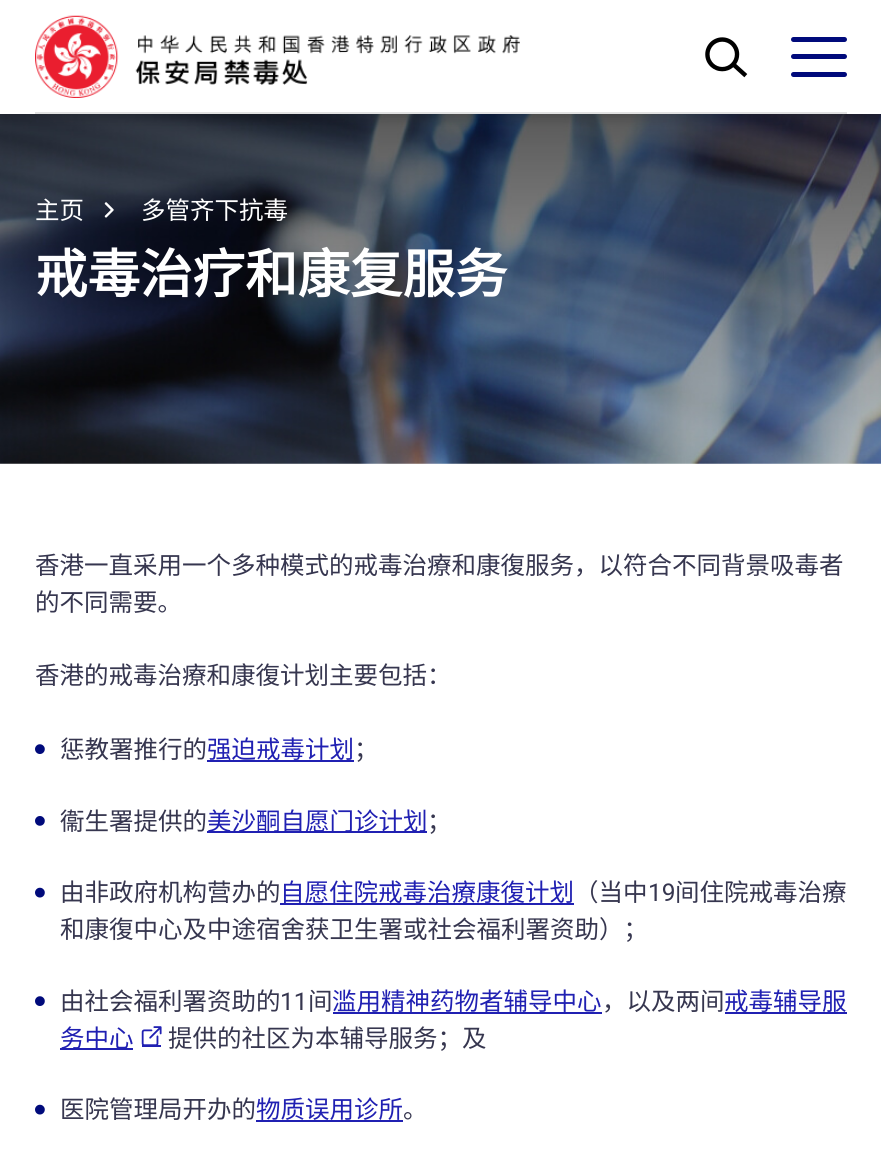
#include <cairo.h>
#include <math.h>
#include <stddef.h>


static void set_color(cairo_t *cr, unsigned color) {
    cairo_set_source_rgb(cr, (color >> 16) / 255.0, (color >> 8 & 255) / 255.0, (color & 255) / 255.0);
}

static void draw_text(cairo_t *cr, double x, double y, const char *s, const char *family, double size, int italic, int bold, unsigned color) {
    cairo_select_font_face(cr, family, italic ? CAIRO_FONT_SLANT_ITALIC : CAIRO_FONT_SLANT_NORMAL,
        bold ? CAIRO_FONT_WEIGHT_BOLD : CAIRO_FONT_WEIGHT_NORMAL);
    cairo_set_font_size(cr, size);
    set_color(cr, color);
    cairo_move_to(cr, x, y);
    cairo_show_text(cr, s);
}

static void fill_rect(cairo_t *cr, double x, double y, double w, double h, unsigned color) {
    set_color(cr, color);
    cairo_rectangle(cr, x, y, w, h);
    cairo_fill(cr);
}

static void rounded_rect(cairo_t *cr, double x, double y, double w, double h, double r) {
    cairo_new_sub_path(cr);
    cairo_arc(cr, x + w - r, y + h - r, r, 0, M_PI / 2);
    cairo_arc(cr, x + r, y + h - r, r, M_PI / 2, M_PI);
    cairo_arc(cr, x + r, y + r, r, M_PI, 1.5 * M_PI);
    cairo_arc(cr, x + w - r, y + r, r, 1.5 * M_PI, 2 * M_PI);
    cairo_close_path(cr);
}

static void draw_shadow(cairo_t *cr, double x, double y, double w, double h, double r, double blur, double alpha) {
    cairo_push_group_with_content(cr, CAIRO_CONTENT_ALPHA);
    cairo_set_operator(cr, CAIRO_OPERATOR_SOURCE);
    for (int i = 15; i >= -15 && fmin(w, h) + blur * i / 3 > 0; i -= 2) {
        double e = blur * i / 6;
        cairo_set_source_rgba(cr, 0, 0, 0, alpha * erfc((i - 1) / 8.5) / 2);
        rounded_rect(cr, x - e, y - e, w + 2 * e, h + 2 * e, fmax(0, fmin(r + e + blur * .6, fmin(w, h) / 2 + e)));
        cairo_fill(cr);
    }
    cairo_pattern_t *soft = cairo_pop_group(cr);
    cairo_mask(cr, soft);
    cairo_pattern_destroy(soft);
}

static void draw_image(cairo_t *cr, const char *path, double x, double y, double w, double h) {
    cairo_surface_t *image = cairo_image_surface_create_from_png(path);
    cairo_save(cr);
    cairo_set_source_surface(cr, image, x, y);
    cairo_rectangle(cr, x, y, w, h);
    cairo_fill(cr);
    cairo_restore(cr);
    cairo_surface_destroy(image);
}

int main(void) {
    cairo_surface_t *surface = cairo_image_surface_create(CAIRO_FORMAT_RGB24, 881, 1155);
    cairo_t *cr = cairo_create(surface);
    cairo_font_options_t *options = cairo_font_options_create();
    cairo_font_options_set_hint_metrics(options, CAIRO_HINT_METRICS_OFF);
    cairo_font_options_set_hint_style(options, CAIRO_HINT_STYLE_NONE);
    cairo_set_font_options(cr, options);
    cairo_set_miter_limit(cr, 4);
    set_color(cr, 0xFFFFFF);
    cairo_paint(cr);
    draw_image(cr, "assets/img3.png", 0, 114, 881, 350);
    set_color(cr, 0x000000);
    draw_shadow(cr, 0, 5, 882, 114, 0, 5, 0.16);
    fill_rect(cr, 0, 0, 881, 114, 0xFFFFFF);
    fill_rect(cr, 35, 112, 812, 2, 0xE2E2E2);
    draw_image(cr, "assets/img1.png", 35, 15, 485, 83);
    draw_image(cr, "assets/img2.png", 705, 37, 43, 41);
    set_color(cr, 0x000A7B);
    rounded_rect(cr, 791, 37, 56, 5, 2.5);
    cairo_fill(cr);
    rounded_rect(cr, 791, 54, 56, 5, 2.5);
    cairo_fill(cr);
    rounded_rect(cr, 791, 72, 56, 5, 2.5);
    cairo_fill(cr);
    draw_text(cr, 35, 219, "主页", "Noto Sans CJK SC", 24.5, 0, 0, 0xFFFFFF);
    draw_image(cr, "assets/img4.png", 104, 202, 10, 16);
    draw_text(cr, 141, 219, "多管齐下抗毒", "Noto Sans CJK SC", 24.5, 0, 0, 0xFFFFFF);
    draw_text(cr, 35, 293, "戒毒治疗和康复服务", "Noto Sans CJK SC", 52.5, 0, 1, 0xFFFFFF);
    draw_text(cr, 35, 574, "香港一直采用一个多种模式的戒毒治療和康復服务，以符合不同背景吸毒者", "Noto Sans CJK SC", 24.5, 0, 0, 0x36364F);
    draw_text(cr, 35, 611, "的不同需要。", "Noto Sans CJK SC", 24.5, 0, 0, 0x36364F);
    draw_text(cr, 35, 684, "香港的戒毒治療和康復计划主要包括：", "Noto Sans CJK SC", 24.5, 0, 0, 0x36364F);
    draw_image(cr, "assets/img5.png", 35, 744, 10, 10);
    draw_text(cr, 60, 758, "惩教署推行的", "Noto Sans CJK SC", 24.5, 0, 0, 0x36364F);
    fill_rect(cr, 207, 760, 147, 2, 0x2020B2);
    draw_text(cr, 207, 758, "强迫戒毒计划", "Noto Sans CJK SC", 24.5, 0, 0, 0x2020B2);
    draw_text(cr, 354, 758, "；", "Noto Sans CJK SC", 24.5, 0, 0, 0x36364F);
    draw_image(cr, "assets/img6.png", 35, 816, 10, 10);
    draw_text(cr, 60, 830, "衞生署提供的", "Noto Sans CJK SC", 24.5, 0, 0, 0x36364F);
    fill_rect(cr, 207, 831, 220, 2, 0x2020B2);
    draw_text(cr, 207, 830, "美沙酮自愿门诊计划", "Noto Sans CJK SC", 24.5, 0, 0, 0x2020B2);
    draw_text(cr, 427, 830, "；", "Noto Sans CJK SC", 24.5, 0, 0, 0x36364F);
    draw_image(cr, "assets/img7.png", 35, 887, 10, 11);
    draw_text(cr, 60, 901, "由非政府机构营办的", "Noto Sans CJK SC", 24.5, 0, 0, 0x36364F);
    fill_rect(cr, 280, 903, 294, 2, 0x2020B2);
    draw_text(cr, 280, 901, "自愿住院戒毒治療康復计划", "Noto Sans CJK SC", 24.5, 0, 0, 0x2020B2);
    draw_text(cr, 574, 901, "（当中", "Noto Sans CJK SC", 24.5, 0, 0, 0x36364F);
    draw_text(cr, 648, 901, "19", "Roboto", 24.5, 0, 0, 0x36364F);
    draw_text(cr, 675, 901, "间住院戒毒治療", "Noto Sans CJK SC", 24.5, 0, 0, 0x36364F);
    draw_text(cr, 60, 938, "和康復中心及中途宿舍获卫生署或社会福利署资助）；", "Noto Sans CJK SC", 24.5, 0, 0, 0x36364F);
    draw_image(cr, "assets/img5.png", 35, 996, 10, 10);
    draw_text(cr, 60, 1010, "由社会福利署资助的", "Noto Sans CJK SC", 24.5, 0, 0, 0x36364F);
    draw_text(cr, 280, 1010, "11", "Roboto", 24.5, 0, 0, 0x36364F);
    draw_text(cr, 308, 1010, "间", "Noto Sans CJK SC", 24.5, 0, 0, 0x36364F);
    fill_rect(cr, 333, 1012, 269, 2, 0x2020B2);
    draw_text(cr, 332, 1010, "滥用精神药物者辅导中心", "Noto Sans CJK SC", 24.5, 0, 0, 0x2020B2);
    draw_text(cr, 602, 1010, "，以及两间", "Noto Sans CJK SC", 24.5, 0, 0, 0x36364F);
    draw_text(cr, 724, 1010, "戒毒辅导服", "Noto Sans CJK SC", 24.5, 0, 0, 0x2020B2);
    fill_rect(cr, 725, 1012, 122, 2, 0x2020B2);
    fill_rect(cr, 60, 1048, 73, 2, 0x2020B2);
    draw_text(cr, 60, 1047, "务中心", "Noto Sans CJK SC", 24.5, 0, 0, 0x2020B2);
    fill_rect(cr, 142, 1045, 19, 2, 0x2020B2);
    draw_image(cr, "assets/img8.png", 141, 1026, 21, 19);
    draw_text(cr, 168, 1047, "提供的社区为本辅导服务；及", "Noto Sans CJK SC", 24.5, 0, 0, 0x36364F);
    draw_image(cr, "assets/img7.png", 35, 1104, 10, 11);
    draw_text(cr, 60, 1118, "医院管理局开办的", "Noto Sans CJK SC", 24.5, 0, 0, 0x36364F);
    fill_rect(cr, 256, 1120, 147, 2, 0x2020B2);
    draw_text(cr, 256, 1118, "物质误用诊所", "Noto Sans CJK SC", 24.5, 0, 0, 0x2020B2);
    draw_text(cr, 403, 1118, "。", "Noto Sans CJK SC", 24.5, 0, 0, 0x36364F);
    cairo_surface_write_to_png(surface, "output.png");
    cairo_font_options_destroy(options);
    cairo_destroy(cr);
    cairo_surface_destroy(surface);
    return 0;
}
